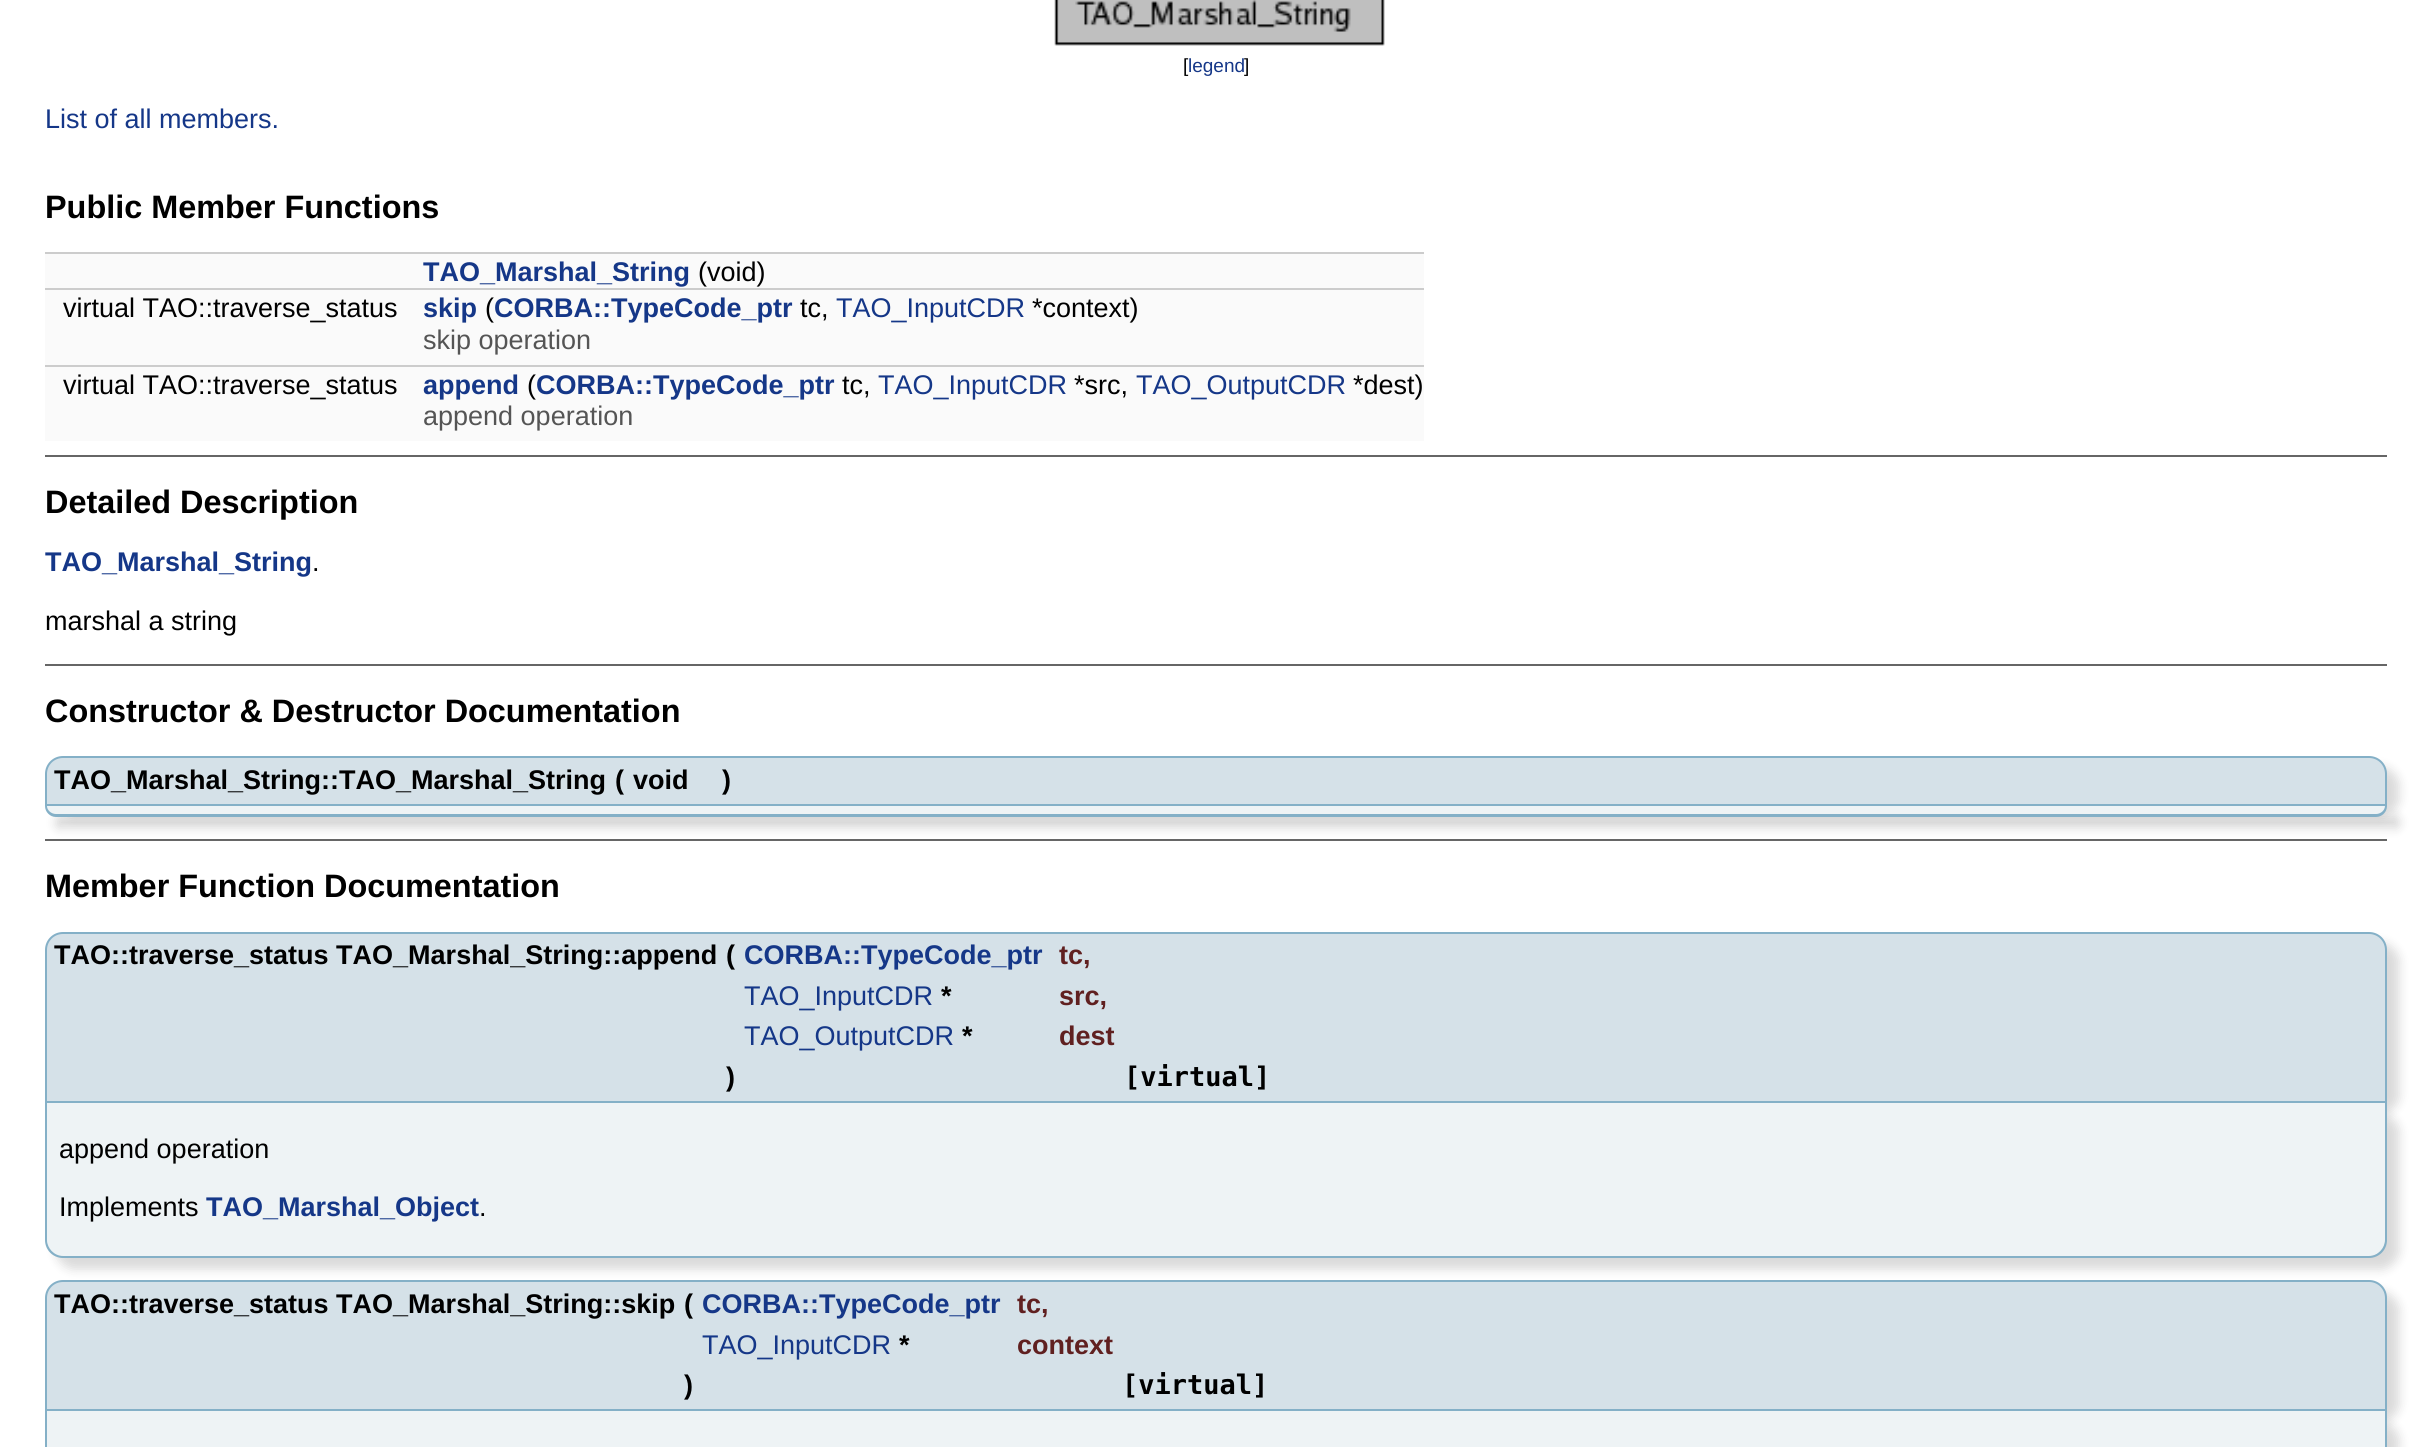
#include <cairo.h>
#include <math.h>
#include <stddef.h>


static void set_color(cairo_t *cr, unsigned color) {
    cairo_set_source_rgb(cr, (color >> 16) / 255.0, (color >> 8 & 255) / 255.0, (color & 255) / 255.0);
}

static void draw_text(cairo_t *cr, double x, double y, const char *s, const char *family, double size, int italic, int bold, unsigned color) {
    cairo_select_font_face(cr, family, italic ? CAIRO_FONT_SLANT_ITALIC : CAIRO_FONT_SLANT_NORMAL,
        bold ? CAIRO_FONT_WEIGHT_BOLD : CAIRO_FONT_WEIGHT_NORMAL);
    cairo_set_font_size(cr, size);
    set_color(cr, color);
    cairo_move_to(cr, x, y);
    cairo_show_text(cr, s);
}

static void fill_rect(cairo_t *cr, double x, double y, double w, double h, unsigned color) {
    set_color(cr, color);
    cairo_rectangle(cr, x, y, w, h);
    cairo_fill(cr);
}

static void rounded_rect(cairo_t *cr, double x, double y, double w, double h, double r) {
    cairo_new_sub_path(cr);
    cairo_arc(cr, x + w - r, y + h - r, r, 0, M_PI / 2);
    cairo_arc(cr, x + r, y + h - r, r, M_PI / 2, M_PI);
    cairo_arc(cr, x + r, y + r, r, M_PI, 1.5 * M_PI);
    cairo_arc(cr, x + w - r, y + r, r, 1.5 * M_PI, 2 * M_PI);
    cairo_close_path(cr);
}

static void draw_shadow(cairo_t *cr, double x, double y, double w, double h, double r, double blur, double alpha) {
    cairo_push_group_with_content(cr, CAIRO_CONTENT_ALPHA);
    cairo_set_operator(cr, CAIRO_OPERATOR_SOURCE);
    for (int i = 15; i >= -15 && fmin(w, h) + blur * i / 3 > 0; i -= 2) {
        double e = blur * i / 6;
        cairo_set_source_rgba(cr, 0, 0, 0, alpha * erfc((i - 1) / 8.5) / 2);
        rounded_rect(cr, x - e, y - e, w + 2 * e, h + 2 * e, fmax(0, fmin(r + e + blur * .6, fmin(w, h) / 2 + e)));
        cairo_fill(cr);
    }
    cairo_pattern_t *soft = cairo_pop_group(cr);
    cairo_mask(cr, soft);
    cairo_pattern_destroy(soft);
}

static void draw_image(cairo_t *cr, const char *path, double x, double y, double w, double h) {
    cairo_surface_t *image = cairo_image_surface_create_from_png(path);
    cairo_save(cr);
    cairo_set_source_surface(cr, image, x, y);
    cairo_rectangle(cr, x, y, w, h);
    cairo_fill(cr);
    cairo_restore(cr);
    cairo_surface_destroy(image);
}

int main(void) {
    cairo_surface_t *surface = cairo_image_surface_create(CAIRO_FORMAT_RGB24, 2432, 1447);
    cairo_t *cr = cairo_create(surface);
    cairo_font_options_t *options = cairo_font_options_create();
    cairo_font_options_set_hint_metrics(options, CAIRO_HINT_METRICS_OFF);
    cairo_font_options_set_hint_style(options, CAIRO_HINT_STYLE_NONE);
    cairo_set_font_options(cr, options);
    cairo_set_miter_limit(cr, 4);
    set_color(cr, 0xFFFFFF);
    cairo_paint(cr);
    draw_image(cr, "assets/img1.png", 1054, 0, 331, 46);
    draw_text(cr, 1183, 72, "[", "Liberation Sans", 19, 0, 0, 0x000000);
    draw_text(cr, 1188, 72, "legend", "Liberation Sans", 19, 0, 0, 0x153788);
    draw_text(cr, 1244, 72, "]", "Liberation Sans", 19, 0, 0, 0x000000);
    draw_text(cr, 45, 128, "List of all members.", "Liberation Sans", 27, 0, 0, 0x153788);
    draw_text(cr, 45, 218, "Public Member Functions", "Liberation Sans", 32.4, 0, 1, 0x000000);
    fill_rect(cr, 45, 254, 1379, 34, 0xFAFAFA);
    fill_rect(cr, 45, 252, 1379, 2, 0xCCCCCC);
    draw_text(cr, 423, 281, "TAO_Marshal_String", "Liberation Sans", 27, 0, 1, 0x153788);
    draw_text(cr, 698, 281, "(void)", "Liberation Sans", 27, 0, 0, 0x000000);
    fill_rect(cr, 45, 290, 1379, 34, 0xFAFAFA);
    fill_rect(cr, 45, 288, 1379, 2, 0xCCCCCC);
    draw_text(cr, 63, 317, "virtual TAO::traverse_status", "Liberation Sans", 27, 0, 0, 0x000000);
    draw_text(cr, 423, 317, "skip", "Liberation Sans", 27, 0, 1, 0x153788);
    draw_text(cr, 485, 317, "(", "Liberation Sans", 27, 0, 0, 0x000000);
    draw_text(cr, 494, 317, "CORBA::TypeCode_ptr", "Liberation Sans", 27, 0, 1, 0x153788);
    draw_text(cr, 800, 317, "tc,", "Liberation Sans", 27, 0, 0, 0x000000);
    draw_text(cr, 836, 317, "TAO_InputCDR", "Liberation Sans", 27, 0, 0, 0x153788);
    draw_text(cr, 1032, 317, "*context)", "Liberation Sans", 27, 0, 0, 0x000000);
    fill_rect(cr, 45, 324, 1379, 41, 0xFAFAFA);
    draw_text(cr, 423, 349, "skip operation", "Liberation Sans", 27, 0, 0, 0x555555);
    fill_rect(cr, 45, 367, 1379, 34, 0xFAFAFA);
    fill_rect(cr, 45, 365, 1379, 2, 0xCCCCCC);
    draw_text(cr, 63, 394, "virtual TAO::traverse_status", "Liberation Sans", 27, 0, 0, 0x000000);
    draw_text(cr, 423, 394, "append", "Liberation Sans", 27, 0, 1, 0x153788);
    draw_text(cr, 527, 394, "(", "Liberation Sans", 27, 0, 0, 0x000000);
    draw_text(cr, 536, 394, "CORBA::TypeCode_ptr", "Liberation Sans", 27, 0, 1, 0x153788);
    draw_text(cr, 842, 394, "tc,", "Liberation Sans", 27, 0, 0, 0x000000);
    draw_text(cr, 878, 394, "TAO_InputCDR", "Liberation Sans", 27, 0, 0, 0x153788);
    draw_text(cr, 1074, 394, "*src,", "Liberation Sans", 27, 0, 0, 0x000000);
    draw_text(cr, 1136, 394, "TAO_OutputCDR", "Liberation Sans", 27, 0, 0, 0x153788);
    draw_text(cr, 1353, 394, "*dest)", "Liberation Sans", 27, 0, 0, 0x000000);
    fill_rect(cr, 45, 401, 1379, 40, 0xFAFAFA);
    draw_text(cr, 423, 425, "append operation", "Liberation Sans", 27, 0, 0, 0x555555);
    fill_rect(cr, 45, 455, 2342, 2, 0x666666);
    draw_text(cr, 45, 513, "Detailed Description", "Liberation Sans", 32.4, 0, 1, 0x000000);
    draw_text(cr, 45, 571, "TAO_Marshal_String", "Liberation Sans", 27, 0, 1, 0x153788);
    draw_text(cr, 312, 571, ".", "Liberation Sans", 27, 0, 0, 0x000000);
    draw_text(cr, 45, 630, "marshal a string", "Liberation Sans", 27, 0, 0, 0x000000);
    fill_rect(cr, 45, 664, 2342, 2, 0x666666);
    draw_text(cr, 45, 722, "Constructor & Destructor Documentation", "Liberation Sans", 32.4, 0, 1, 0x000000);
    set_color(cr, 0x000000);
    draw_shadow(cr, 56, 767, 2343, 50, 18, 5.5, 0.15);
    set_color(cr, 0xD5E1E8);
    cairo_new_path(cr);
    cairo_move_to(cr, 63, 757);
    cairo_line_to(cr, 2369, 757);
    cairo_curve_to(cr, 2378.5, 757, 2386, 764.5, 2386, 774);
    cairo_line_to(cr, 2386, 805);
    cairo_line_to(cr, 46, 805);
    cairo_line_to(cr, 46, 774);
    cairo_curve_to(cr, 46, 764.5, 53.5, 757, 63, 757);
    cairo_close_path(cr);
    cairo_fill_preserve(cr);
    set_color(cr, 0x84B0C7);
    cairo_stroke(cr);
    draw_text(cr, 54, 789, "TAO_Marshal_String::TAO_Marshal_String", "Liberation Sans", 27, 0, 1, 0x000000);
    draw_text(cr, 615, 789, "(", "Liberation Sans", 27, 0, 1, 0x000000);
    draw_text(cr, 633, 789, "void", "Liberation Sans", 27, 0, 1, 0x000000);
    draw_text(cr, 722, 789, ")", "Liberation Sans", 27, 0, 1, 0x000000);
    set_color(cr, 0x000000);
    draw_shadow(cr, 56, 817, 2343, 11, 11, 5.5, 0.15);
    set_color(cr, 0xEEF3F5);
    cairo_new_path(cr);
    cairo_move_to(cr, 47, 806);
    cairo_line_to(cr, 2385, 806);
    cairo_curve_to(cr, 2385, 811, 2381, 815, 2376, 815);
    cairo_line_to(cr, 56, 815);
    cairo_curve_to(cr, 51, 815, 47, 811, 47, 806);
    cairo_close_path(cr);
    cairo_fill(cr);
    set_color(cr, 0x84B0C7);
    cairo_set_fill_rule(cr, CAIRO_FILL_RULE_EVEN_ODD);
    cairo_new_path(cr);
    cairo_move_to(cr, 45, 806);
    cairo_line_to(cr, 2387, 806);
    cairo_curve_to(cr, 2387, 812, 2382, 817, 2376, 817);
    cairo_line_to(cr, 56, 817);
    cairo_curve_to(cr, 50, 817, 45, 812, 45, 806);
    cairo_close_path(cr);
    cairo_move_to(cr, 47, 806);
    cairo_line_to(cr, 2385, 806);
    cairo_curve_to(cr, 2385, 810, 2381, 814, 2376, 814);
    cairo_line_to(cr, 56, 814);
    cairo_curve_to(cr, 51, 814, 47, 810, 47, 806);
    cairo_close_path(cr);
    cairo_fill(cr);
    fill_rect(cr, 45, 839, 2342, 2, 0x666666);
    draw_text(cr, 45, 897, "Member Function Documentation", "Liberation Sans", 32.4, 0, 1, 0x000000);
    set_color(cr, 0x000000);
    draw_shadow(cr, 56, 943, 2343, 171, 18, 5.5, 0.15);
    set_color(cr, 0xD5E1E8);
    cairo_new_path(cr);
    cairo_move_to(cr, 63, 933);
    cairo_line_to(cr, 2369, 933);
    cairo_curve_to(cr, 2378.5, 933, 2386, 940.5, 2386, 950);
    cairo_line_to(cr, 2386, 1102);
    cairo_line_to(cr, 46, 1102);
    cairo_line_to(cr, 46, 950);
    cairo_curve_to(cr, 46, 940.5, 53.5, 933, 63, 933);
    cairo_close_path(cr);
    cairo_fill_preserve(cr);
    set_color(cr, 0x84B0C7);
    cairo_stroke(cr);
    draw_text(cr, 54, 964, "TAO::traverse_status TAO_Marshal_String::append", "Liberation Sans", 27, 0, 1, 0x000000);
    draw_text(cr, 726, 964, "(", "Liberation Sans", 27, 0, 1, 0x000000);
    draw_text(cr, 744, 964, "CORBA::TypeCode_ptr", "Liberation Sans", 27, 0, 1, 0x153788);
    draw_text(cr, 1059, 964, "tc,", "Liberation Sans", 27, 0, 1, 0x602020);
    draw_text(cr, 744, 1005, "TAO_InputCDR", "Liberation Sans", 27, 0, 0, 0x153788);
    draw_text(cr, 941, 1005, "*", "Liberation Sans", 27, 0, 1, 0x000000);
    draw_text(cr, 1059, 1005, "src,", "Liberation Sans", 27, 0, 1, 0x602020);
    draw_text(cr, 744, 1045, "TAO_OutputCDR", "Liberation Sans", 27, 0, 0, 0x153788);
    draw_text(cr, 962, 1045, "*", "Liberation Sans", 27, 0, 1, 0x000000);
    draw_text(cr, 1059, 1045, "dest", "Liberation Sans", 27, 0, 1, 0x602020);
    draw_text(cr, 726, 1086, ")", "Liberation Sans", 27, 0, 1, 0x000000);
    draw_text(cr, 1124, 1086, "[virtual]", "DejaVu Sans Mono", 27, 0, 1, 0x000000);
    set_color(cr, 0x000000);
    draw_shadow(cr, 56, 1114, 2343, 155, 18, 5.5, 0.15);
    set_color(cr, 0xEEF3F5);
    cairo_new_path(cr);
    cairo_move_to(cr, 47, 1103);
    cairo_line_to(cr, 2385, 1103);
    cairo_line_to(cr, 2385, 1240);
    cairo_curve_to(cr, 2385, 1249, 2378, 1256, 2369, 1256);
    cairo_line_to(cr, 63, 1256);
    cairo_curve_to(cr, 54, 1256, 47, 1249, 47, 1240);
    cairo_close_path(cr);
    cairo_fill(cr);
    set_color(cr, 0x84B0C7);
    cairo_new_path(cr);
    cairo_move_to(cr, 45, 1102);
    cairo_line_to(cr, 2387, 1102);
    cairo_line_to(cr, 2387, 1240);
    cairo_curve_to(cr, 2387, 1250, 2379, 1258, 2369, 1258);
    cairo_line_to(cr, 63, 1258);
    cairo_curve_to(cr, 53, 1258, 45, 1250, 45, 1240);
    cairo_close_path(cr);
    cairo_move_to(cr, 47, 1102);
    cairo_line_to(cr, 2385, 1102);
    cairo_line_to(cr, 2385, 1240);
    cairo_curve_to(cr, 2385, 1248, 2378, 1256, 2369, 1256);
    cairo_line_to(cr, 63, 1256);
    cairo_curve_to(cr, 54, 1256, 47, 1248, 47, 1240);
    cairo_close_path(cr);
    cairo_fill(cr);
    draw_text(cr, 59, 1158, "append operation", "Liberation Sans", 27, 0, 0, 0x000000);
    draw_text(cr, 59, 1216, "Implements", "Liberation Sans", 27, 0, 0, 0x000000);
    draw_text(cr, 206, 1216, "TAO_Marshal_Object", "Liberation Sans", 27, 0, 1, 0x153788);
    draw_text(cr, 479, 1216, ".", "Liberation Sans", 27, 0, 0, 0x000000);
    set_color(cr, 0x000000);
    draw_shadow(cr, 56, 1292, 2343, 130, 18, 5.5, 0.15);
    set_color(cr, 0xD5E1E8);
    cairo_new_path(cr);
    cairo_move_to(cr, 63, 1281);
    cairo_line_to(cr, 2369, 1281);
    cairo_curve_to(cr, 2378.5, 1281, 2386, 1288.5, 2386, 1298);
    cairo_line_to(cr, 2386, 1410);
    cairo_line_to(cr, 46, 1410);
    cairo_line_to(cr, 46, 1298);
    cairo_curve_to(cr, 46, 1288.5, 53.5, 1281, 63, 1281);
    cairo_close_path(cr);
    cairo_fill_preserve(cr);
    set_color(cr, 0x84B0C7);
    cairo_stroke(cr);
    draw_text(cr, 54, 1313, "TAO::traverse_status TAO_Marshal_String::skip", "Liberation Sans", 27, 0, 1, 0x000000);
    draw_text(cr, 684, 1313, "(", "Liberation Sans", 27, 0, 1, 0x000000);
    draw_text(cr, 702, 1313, "CORBA::TypeCode_ptr", "Liberation Sans", 27, 0, 1, 0x153788);
    draw_text(cr, 1017, 1313, "tc,", "Liberation Sans", 27, 0, 1, 0x602020);
    draw_text(cr, 702, 1354, "TAO_InputCDR", "Liberation Sans", 27, 0, 0, 0x153788);
    draw_text(cr, 899, 1354, "*", "Liberation Sans", 27, 0, 1, 0x000000);
    draw_text(cr, 1017, 1354, "context", "Liberation Sans", 27, 0, 1, 0x602020);
    draw_text(cr, 684, 1394, ")", "Liberation Sans", 27, 0, 1, 0x000000);
    draw_text(cr, 1122, 1394, "[virtual]", "DejaVu Sans Mono", 27, 0, 1, 0x000000);
    set_color(cr, 0x000000);
    draw_shadow(cr, 56, 1422, 2343, 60, 18, 5.5, 0.15);
    fill_rect(cr, 47, 1411, 2338, 36, 0xEEF3F5);
    set_color(cr, 0x84B0C7);
    cairo_new_path(cr);
    cairo_move_to(cr, 45, 1411);
    cairo_line_to(cr, 2387, 1411);
    cairo_line_to(cr, 2387, 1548);
    cairo_curve_to(cr, 2387, 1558, 2379, 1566, 2369, 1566);
    cairo_line_to(cr, 63, 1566);
    cairo_curve_to(cr, 53, 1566, 45, 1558, 45, 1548);
    cairo_close_path(cr);
    cairo_move_to(cr, 47, 1411);
    cairo_line_to(cr, 2385, 1411);
    cairo_line_to(cr, 2385, 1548);
    cairo_curve_to(cr, 2385, 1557, 2378, 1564, 2369, 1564);
    cairo_line_to(cr, 63, 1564);
    cairo_curve_to(cr, 54, 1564, 47, 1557, 47, 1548);
    cairo_close_path(cr);
    cairo_fill(cr);
    cairo_surface_write_to_png(surface, "output.png");
    cairo_font_options_destroy(options);
    cairo_destroy(cr);
    cairo_surface_destroy(surface);
    return 0;
}
